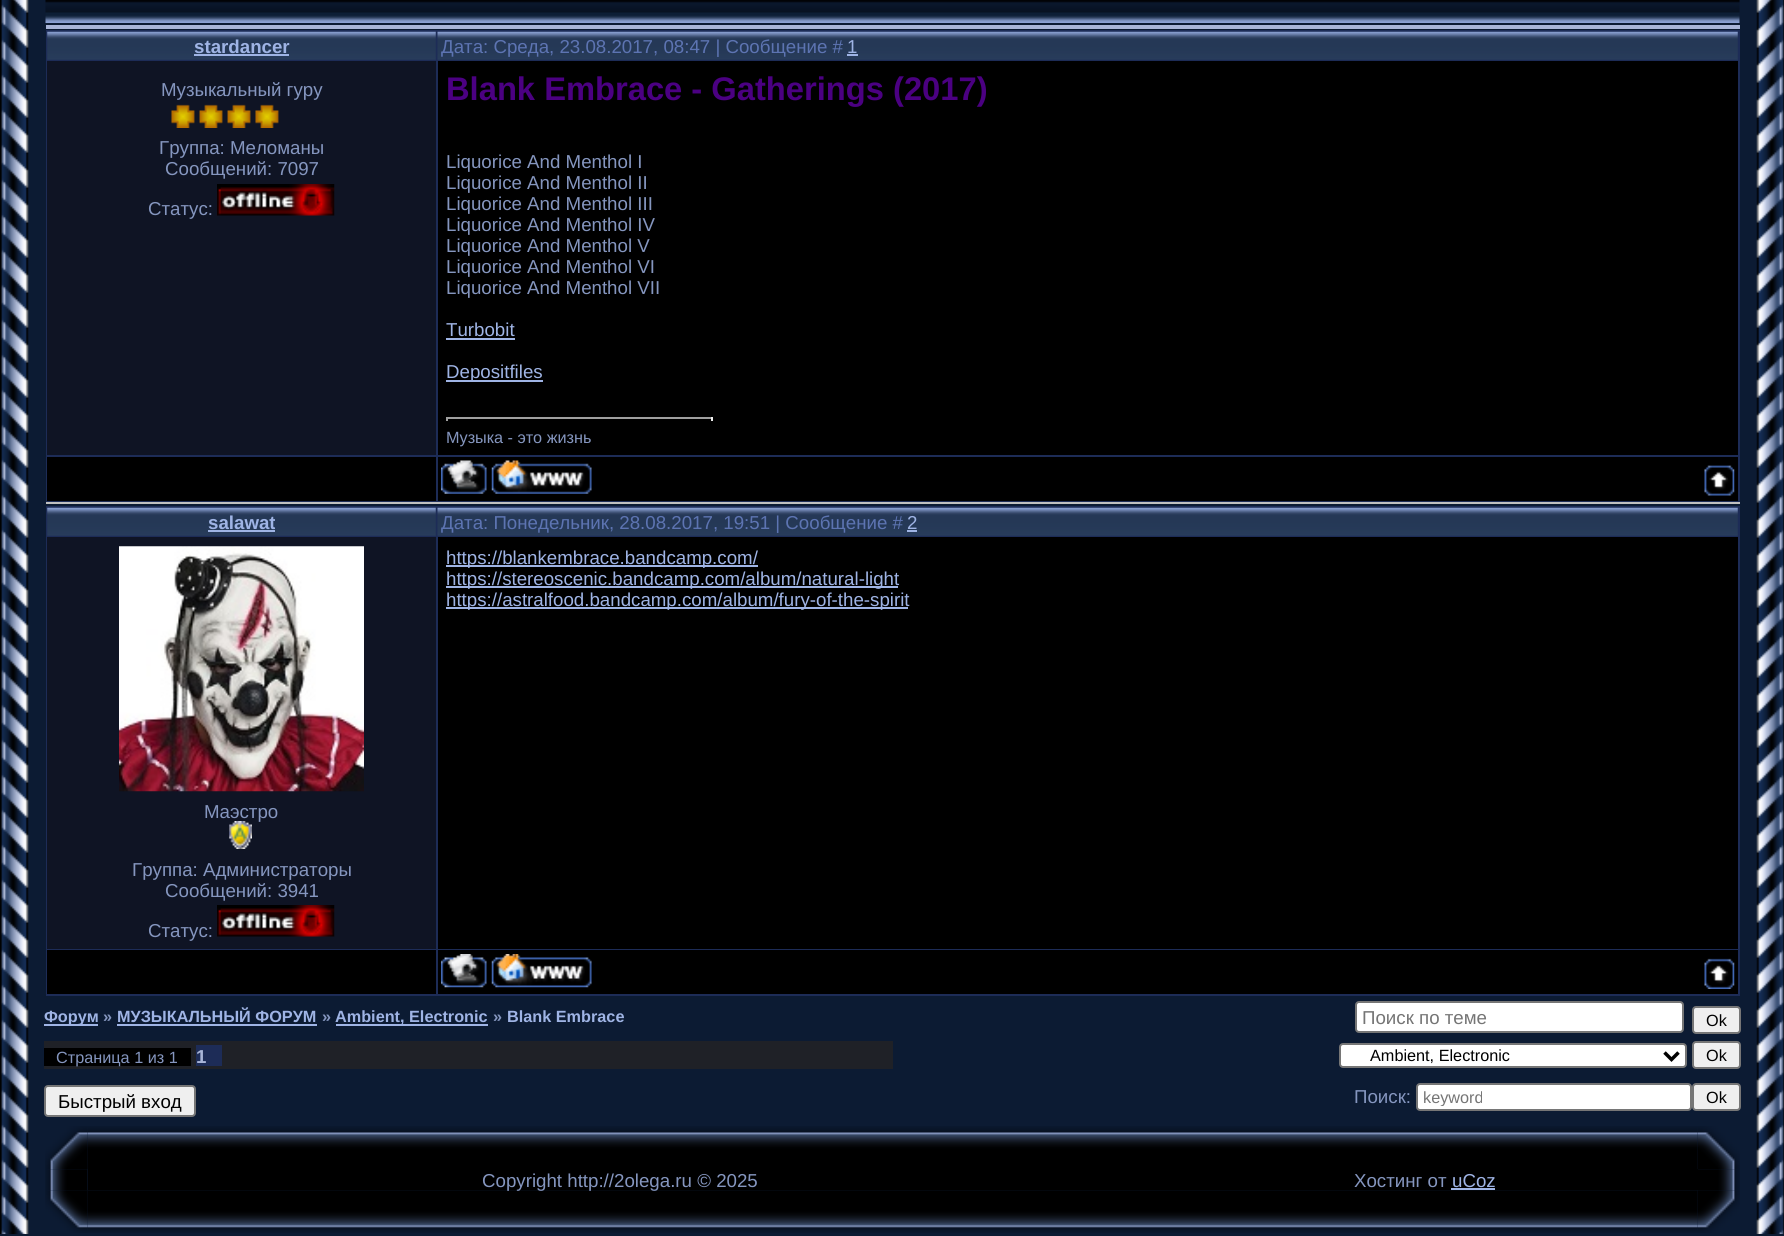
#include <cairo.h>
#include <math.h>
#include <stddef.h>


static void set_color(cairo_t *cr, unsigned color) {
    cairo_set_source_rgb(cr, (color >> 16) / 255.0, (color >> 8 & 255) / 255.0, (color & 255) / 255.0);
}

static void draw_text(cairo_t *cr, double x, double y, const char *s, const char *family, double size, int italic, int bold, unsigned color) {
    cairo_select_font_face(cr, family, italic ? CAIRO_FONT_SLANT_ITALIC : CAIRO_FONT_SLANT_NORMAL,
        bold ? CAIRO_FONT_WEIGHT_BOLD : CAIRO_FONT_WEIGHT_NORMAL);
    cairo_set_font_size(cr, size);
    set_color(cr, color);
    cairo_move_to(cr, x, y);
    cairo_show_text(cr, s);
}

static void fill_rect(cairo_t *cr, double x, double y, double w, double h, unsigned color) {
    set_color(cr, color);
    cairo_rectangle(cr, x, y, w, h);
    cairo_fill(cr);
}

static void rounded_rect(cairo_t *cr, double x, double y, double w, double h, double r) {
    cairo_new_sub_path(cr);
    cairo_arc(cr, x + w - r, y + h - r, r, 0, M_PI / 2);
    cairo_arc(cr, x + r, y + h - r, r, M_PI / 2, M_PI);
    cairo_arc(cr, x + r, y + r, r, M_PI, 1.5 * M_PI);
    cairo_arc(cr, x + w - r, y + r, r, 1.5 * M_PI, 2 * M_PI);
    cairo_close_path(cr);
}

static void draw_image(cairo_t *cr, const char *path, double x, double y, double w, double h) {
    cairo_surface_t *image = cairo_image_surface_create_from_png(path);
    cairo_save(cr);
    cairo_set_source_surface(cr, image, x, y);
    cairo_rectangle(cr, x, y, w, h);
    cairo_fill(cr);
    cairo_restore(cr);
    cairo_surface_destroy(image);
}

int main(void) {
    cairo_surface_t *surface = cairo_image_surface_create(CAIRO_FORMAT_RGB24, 1784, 1236);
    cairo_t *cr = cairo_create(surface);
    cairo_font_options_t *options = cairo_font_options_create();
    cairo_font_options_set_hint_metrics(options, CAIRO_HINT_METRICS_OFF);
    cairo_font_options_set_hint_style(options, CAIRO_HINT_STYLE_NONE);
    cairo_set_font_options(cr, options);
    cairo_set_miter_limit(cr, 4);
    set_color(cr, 0x0C1B33);
    cairo_paint(cr);
    draw_image(cr, "assets/img1.png", 0, 0, 29, 1234);
    draw_image(cr, "assets/img2.png", 45, 0, 1695, 23);
    fill_rect(cr, 46, 25, 1694, 4, 0xA9B5D8);
    fill_rect(cr, 46, 502, 1694, 2, 0xC0C0C0);
    fill_rect(cr, 46, 30, 1694, 472, 0x1D2C57);
    draw_image(cr, "assets/img3.png", 47, 31, 389, 29);
    draw_text(cr, 194, 53, "stardancer", "Liberation Sans", 18.7, 0, 1, 0x9FB4E5);
    fill_rect(cr, 194, 54, 95, 2, 0x9FB4E5);
    draw_image(cr, "assets/img4.png", 437, 31, 1301, 29);
    draw_text(cr, 441, 53, "Дата: Среда, 23.08.2017, 08:47 | Сообщение #", "Liberation Sans", 18.7, 0, 0, 0x5D74B2);
    draw_text(cr, 847, 53, "1", "Liberation Sans", 18.7, 0, 0, 0x9FB4E5);
    fill_rect(cr, 847, 54, 11, 2, 0x9FB4E5);
    fill_rect(cr, 47, 61, 389, 394, 0x0F1424);
    draw_text(cr, 161, 96, "Музыкальный гуру", "Liberation Sans", 18.7, 0, 0, 0x8596BF);
    draw_image(cr, "assets/img5.png", 171, 104, 108, 24);
    draw_text(cr, 159, 154, "Группа: Меломаны", "Liberation Sans", 18.7, 0, 0, 0x8596BF);
    draw_text(cr, 165, 175, "Сообщений: 7097", "Liberation Sans", 18.7, 0, 0, 0x8596BF);
    draw_text(cr, 148, 215, "Статус:", "Liberation Sans", 18.7, 0, 0, 0x8596BF);
    draw_image(cr, "assets/img6.png", 217, 184, 118, 32);
    fill_rect(cr, 438, 61, 1300, 394, 0x000000);
    draw_text(cr, 446, 100, "Blank Embrace - Gatherings (2017)", "Liberation Sans", 32.7, 0, 1, 0x4B0082);
    draw_text(cr, 446, 168, "Liquorice And Menthol I", "Liberation Sans", 18.7, 0, 0, 0x8596BF);
    draw_text(cr, 446, 189, "Liquorice And Menthol II", "Liberation Sans", 18.7, 0, 0, 0x8596BF);
    draw_text(cr, 446, 210, "Liquorice And Menthol III", "Liberation Sans", 18.7, 0, 0, 0x8596BF);
    draw_text(cr, 446, 231, "Liquorice And Menthol IV", "Liberation Sans", 18.7, 0, 0, 0x8596BF);
    draw_text(cr, 446, 252, "Liquorice And Menthol V", "Liberation Sans", 18.7, 0, 0, 0x8596BF);
    draw_text(cr, 446, 273, "Liquorice And Menthol VI", "Liberation Sans", 18.7, 0, 0, 0x8596BF);
    draw_text(cr, 446, 294, "Liquorice And Menthol VII", "Liberation Sans", 18.7, 0, 0, 0x8596BF);
    draw_text(cr, 446, 336, "Turbobit", "Liberation Sans", 18.7, 0, 0, 0x9FB4E5);
    fill_rect(cr, 446, 338, 69, 2, 0x9FB4E5);
    fill_rect(cr, 446, 380, 97, 2, 0x9FB4E5);
    draw_text(cr, 446, 378, "Depositfiles", "Liberation Sans", 18.7, 0, 0, 0x9FB4E5);
    fill_rect(cr, 446, 417, 266, 2, 0x9F9F9F);
    fill_rect(cr, 711, 417, 2, 4, 0xEEEEEE);
    fill_rect(cr, 446, 417, 2, 4, 0x9F9F9F);
    draw_text(cr, 446, 443, "Музыка - это жизнь", "Liberation Sans", 16.25, 0, 0, 0x8596BF);
    fill_rect(cr, 47, 457, 389, 44, 0x000000);
    fill_rect(cr, 438, 457, 1300, 44, 0x000000);
    draw_image(cr, "assets/img7.png", 441, 460, 46, 34);
    draw_image(cr, "assets/img8.png", 491, 460, 101, 34);
    draw_image(cr, "assets/img9.png", 1704, 465, 31, 31);
    fill_rect(cr, 46, 506, 1694, 490, 0x1D2C57);
    draw_image(cr, "assets/img10.png", 47, 507, 389, 29);
    draw_text(cr, 208, 529, "salawat", "Liberation Sans", 18.7, 0, 1, 0x9FB4E5);
    fill_rect(cr, 208, 530, 67, 2, 0x9FB4E5);
    draw_image(cr, "assets/img11.png", 437, 507, 1301, 29);
    draw_text(cr, 441, 529, "Дата: Понедельник, 28.08.2017, 19:51 | Сообщение #", "Liberation Sans", 18.7, 0, 0, 0x5D74B2);
    draw_text(cr, 907, 529, "2", "Liberation Sans", 18.7, 0, 0, 0x9FB4E5);
    fill_rect(cr, 907, 530, 10, 2, 0x9FB4E5);
    fill_rect(cr, 438, 537, 1300, 412, 0x000000);
    fill_rect(cr, 446, 565, 312, 2, 0x9FB4E5);
    draw_text(cr, 446, 564, "https://blankembrace.bandcamp.com/", "Liberation Sans", 18.7, 0, 0, 0x9FB4E5);
    fill_rect(cr, 446, 586, 452, 2, 0x9FB4E5);
    draw_text(cr, 446, 585, "https://stereoscenic.bandcamp.com/album/natural-light", "Liberation Sans", 18.7, 0, 0, 0x9FB4E5);
    fill_rect(cr, 446, 607, 462, 2, 0x9FB4E5);
    draw_text(cr, 446, 606, "https://astralfood.bandcamp.com/album/fury-of-the-spirit", "Liberation Sans", 18.7, 0, 0, 0x9FB4E5);
    fill_rect(cr, 47, 537, 389, 412, 0x0F1424);
    draw_image(cr, "assets/img12.png", 119, 546, 245, 246);
    draw_text(cr, 204, 818, "Маэстро", "Liberation Sans", 18.7, 0, 0, 0x8596BF);
    draw_image(cr, "assets/img13.png", 229, 821, 23, 28);
    draw_text(cr, 132, 876, "Группа: Администраторы", "Liberation Sans", 18.7, 0, 0, 0x8596BF);
    draw_text(cr, 165, 897, "Сообщений: 3941", "Liberation Sans", 18.7, 0, 0, 0x8596BF);
    draw_text(cr, 148, 937, "Статус:", "Liberation Sans", 18.7, 0, 0, 0x8596BF);
    draw_image(cr, "assets/img6.png", 217, 905, 118, 32);
    fill_rect(cr, 47, 950, 389, 44, 0x000000);
    fill_rect(cr, 438, 950, 1300, 44, 0x000000);
    draw_image(cr, "assets/img14.png", 441, 954, 46, 34);
    draw_image(cr, "assets/img15.png", 491, 954, 101, 34);
    draw_image(cr, "assets/img16.png", 1704, 958, 31, 31);
    fill_rect(cr, 44, 1024, 54, 2, 0x9FB4E5);
    draw_text(cr, 44, 1022, "Форум", "Liberation Sans", 16.25, 0, 1, 0x9FB4E5);
    draw_text(cr, 103, 1022, "»", "Liberation Sans", 16.25, 0, 1, 0x8596BF);
    draw_text(cr, 117, 1022, "МУЗЫКАЛЬНЫЙ ФОРУМ", "Liberation Sans", 16.25, 0, 1, 0x9FB4E5);
    fill_rect(cr, 117, 1024, 200, 2, 0x9FB4E5);
    draw_text(cr, 322, 1022, "»", "Liberation Sans", 16.25, 0, 1, 0x8596BF);
    fill_rect(cr, 336, 1024, 152, 2, 0x9FB4E5);
    draw_text(cr, 335, 1022, "Ambient, Electronic", "Liberation Sans", 16.25, 0, 1, 0x9FB4E5);
    draw_text(cr, 493, 1022, "»", "Liberation Sans", 16.25, 0, 1, 0x8596BF);
    draw_text(cr, 507, 1022, "Blank Embrace", "Liberation Sans", 16.25, 0, 1, 0x9FB4E5);
    set_color(cr, 0xFFFFFF);
    rounded_rect(cr, 1356, 1002, 327, 30, 3);
    cairo_fill_preserve(cr);
    set_color(cr, 0x767676);
    cairo_stroke(cr);
    draw_text(cr, 1362, 1024, "Поиск по теме", "Liberation Sans", 18.7, 0, 0, 0x757575);
    set_color(cr, 0xEFEFEF);
    rounded_rect(cr, 1693, 1007, 47, 26, 3);
    cairo_fill_preserve(cr);
    set_color(cr, 0x767676);
    cairo_stroke(cr);
    draw_text(cr, 1706, 1026, "Ok", "Liberation Sans", 16.25, 0, 0, 0x000000);
    fill_rect(cr, 44, 1041, 849, 28, 0x1F2127);
    fill_rect(cr, 44, 1048, 147, 18, 0x000000);
    draw_text(cr, 56, 1063, "Страница 1 из 1", "Liberation Sans", 16.25, 0, 0, 0x8596BF);
    fill_rect(cr, 196, 1045, 26, 21, 0x1D2C57);
    draw_text(cr, 196, 1063, "1", "Liberation Sans", 18.7, 0, 1, 0xA9B5D8);
    set_color(cr, 0xFFFFFF);
    rounded_rect(cr, 1340, 1044, 346, 23, 3);
    cairo_fill_preserve(cr);
    set_color(cr, 0x767676);
    cairo_stroke(cr);
    cairo_new_path(cr);
    cairo_move_to(cr, 1664.5, 1052.5);
    cairo_line_to(cr, 1671.5, 1059.5);
    cairo_line_to(cr, 1678.5, 1052.5);
    set_color(cr, 0x000000);
    cairo_set_line_width(cr, 3.5);
    cairo_stroke(cr);
    draw_text(cr, 1370, 1061, "Ambient, Electronic", "Liberation Sans", 16.25, 0, 0, 0x000000);
    set_color(cr, 0xEFEFEF);
    rounded_rect(cr, 1693, 1042, 47, 26, 3);
    cairo_fill_preserve(cr);
    set_color(cr, 0x767676);
    cairo_set_line_width(cr, 2);
    cairo_stroke(cr);
    draw_text(cr, 1706, 1061, "Ok", "Liberation Sans", 16.25, 0, 0, 0x000000);
    set_color(cr, 0xEFEFEF);
    rounded_rect(cr, 45, 1086, 150, 30, 3);
    cairo_fill_preserve(cr);
    set_color(cr, 0x767676);
    cairo_stroke(cr);
    draw_text(cr, 58, 1108, "Быстрый вход", "Liberation Sans", 18.7, 0, 0, 0x000000);
    draw_text(cr, 1354, 1103, "Поиск:", "Liberation Sans", 18.7, 0, 0, 0x8596BF);
    set_color(cr, 0xFFFFFF);
    rounded_rect(cr, 1417, 1084, 274, 26, 3);
    cairo_fill_preserve(cr);
    set_color(cr, 0x767676);
    cairo_stroke(cr);
    cairo_save(cr);
    cairo_rectangle(cr, 1423, 1089, 262, 17);
    cairo_clip(cr);
    draw_text(cr, 1423, 1103, "keyword", "Liberation Sans", 16.25, 0, 0, 0x757575);
    cairo_restore(cr);
    set_color(cr, 0xEFEFEF);
    rounded_rect(cr, 1693, 1084, 47, 26, 3);
    cairo_fill_preserve(cr);
    set_color(cr, 0x767676);
    cairo_stroke(cr);
    draw_text(cr, 1706, 1103, "Ok", "Liberation Sans", 16.25, 0, 0, 0x000000);
    draw_image(cr, "assets/img18.png", 87, 1126, 1611, 44);
    draw_image(cr, "assets/img20.png", 45, 1169, 43, 22);
    draw_image(cr, "assets/img17.png", 45, 1126, 43, 44);
    fill_rect(cr, 88, 1169, 1610, 21, 0x000000);
    draw_image(cr, "assets/img21.png", 1697, 1169, 43, 22);
    draw_image(cr, "assets/img19.png", 1697, 1126, 43, 44);
    draw_image(cr, "assets/img23.png", 87, 1190, 1611, 43);
    draw_text(cr, 482, 1187, "Copyright http://2olega.ru © 2025", "Liberation Sans", 18.7, 0, 0, 0x8596BF);
    draw_text(cr, 1354, 1187, "Хостинг от", "Liberation Sans", 18.7, 0, 0, 0x8596BF);
    draw_text(cr, 1452, 1187, "uCoz", "Liberation Sans", 18.7, 0, 0, 0x9FB4E5);
    fill_rect(cr, 1451, 1188, 44, 2, 0x9FB4E5);
    draw_image(cr, "assets/img22.png", 45, 1190, 43, 43);
    draw_image(cr, "assets/img24.png", 1697, 1190, 43, 43);
    draw_image(cr, "assets/img25.png", 1756, 0, 28, 1234);
    cairo_surface_write_to_png(surface, "output.png");
    cairo_font_options_destroy(options);
    cairo_destroy(cr);
    cairo_surface_destroy(surface);
    return 0;
}
